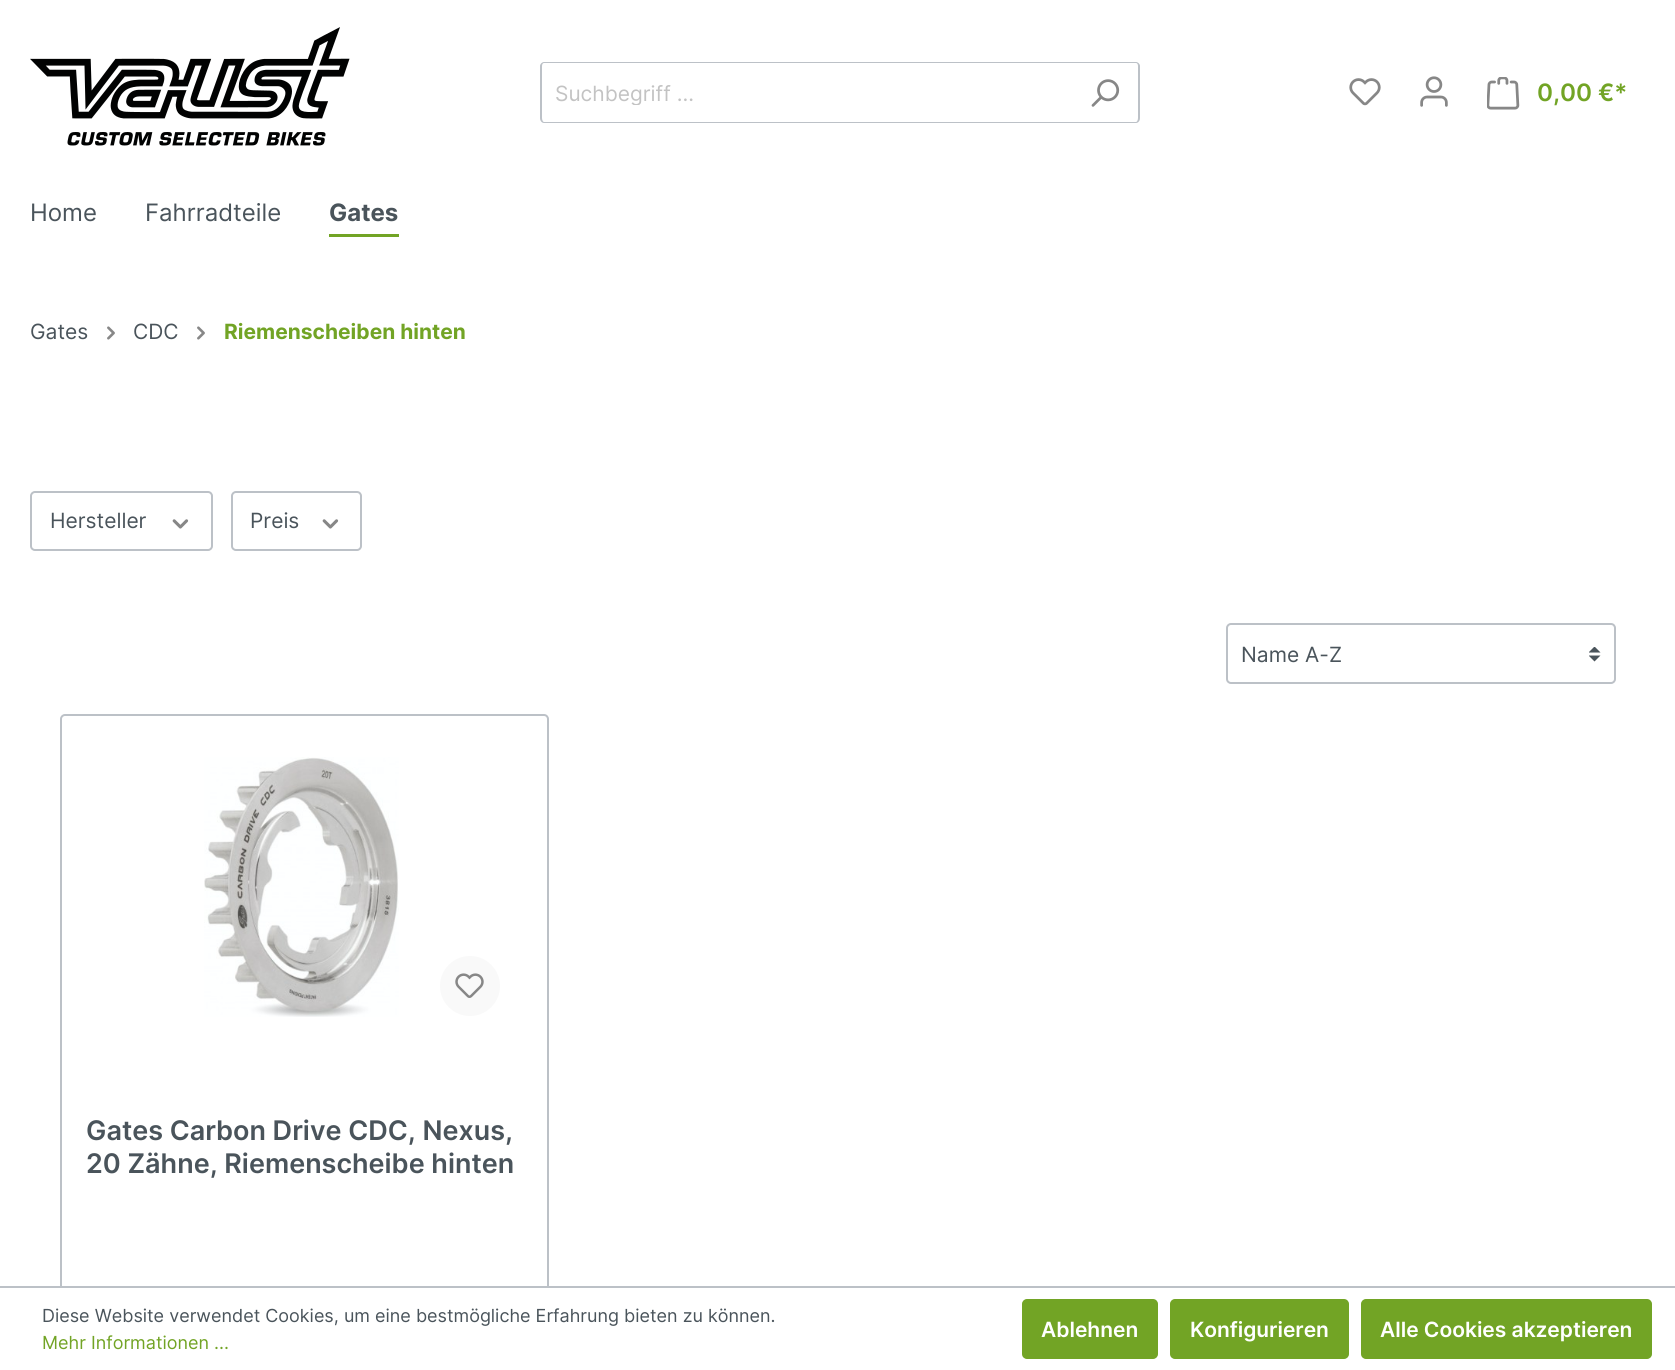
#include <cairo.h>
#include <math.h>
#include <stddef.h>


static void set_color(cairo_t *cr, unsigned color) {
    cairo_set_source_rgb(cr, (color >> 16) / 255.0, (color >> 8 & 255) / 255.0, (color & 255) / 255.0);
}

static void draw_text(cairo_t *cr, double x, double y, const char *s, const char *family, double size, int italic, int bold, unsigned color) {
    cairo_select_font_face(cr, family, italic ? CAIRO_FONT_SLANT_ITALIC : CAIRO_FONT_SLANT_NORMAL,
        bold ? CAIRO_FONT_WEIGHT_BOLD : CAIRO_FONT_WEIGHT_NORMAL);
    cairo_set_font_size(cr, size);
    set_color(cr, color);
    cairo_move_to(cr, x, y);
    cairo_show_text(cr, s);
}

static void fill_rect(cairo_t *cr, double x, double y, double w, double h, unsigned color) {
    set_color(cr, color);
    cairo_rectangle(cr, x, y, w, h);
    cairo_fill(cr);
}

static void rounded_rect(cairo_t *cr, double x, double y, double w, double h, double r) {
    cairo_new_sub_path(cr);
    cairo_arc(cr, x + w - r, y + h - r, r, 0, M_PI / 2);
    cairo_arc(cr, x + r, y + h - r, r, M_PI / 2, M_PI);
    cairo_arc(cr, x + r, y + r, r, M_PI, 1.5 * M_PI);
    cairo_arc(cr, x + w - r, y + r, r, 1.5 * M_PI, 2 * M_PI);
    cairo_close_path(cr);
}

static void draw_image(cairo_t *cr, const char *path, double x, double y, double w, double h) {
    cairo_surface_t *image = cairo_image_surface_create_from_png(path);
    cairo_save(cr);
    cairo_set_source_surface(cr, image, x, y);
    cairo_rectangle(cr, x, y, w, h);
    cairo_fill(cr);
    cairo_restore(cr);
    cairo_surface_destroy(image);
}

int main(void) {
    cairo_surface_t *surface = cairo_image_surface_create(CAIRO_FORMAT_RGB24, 1675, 1370);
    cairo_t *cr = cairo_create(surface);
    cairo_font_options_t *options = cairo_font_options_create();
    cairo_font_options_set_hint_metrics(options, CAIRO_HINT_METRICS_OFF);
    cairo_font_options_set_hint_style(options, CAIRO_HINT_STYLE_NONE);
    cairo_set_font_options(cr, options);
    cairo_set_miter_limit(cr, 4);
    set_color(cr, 0xFFFFFF);
    cairo_paint(cr);
    draw_image(cr, "assets/img1.png", 30, 27, 320, 119);
    set_color(cr, 0xBCC1C7);
    cairo_set_fill_rule(cr, CAIRO_FILL_RULE_EVEN_ODD);
    cairo_new_path(cr);
    cairo_move_to(cr, 544, 62);
    cairo_line_to(cr, 1071, 62);
    cairo_line_to(cr, 1071, 123);
    cairo_line_to(cr, 544, 123);
    cairo_curve_to(cr, 542, 123, 540, 121, 540, 118);
    cairo_line_to(cr, 540, 66);
    cairo_curve_to(cr, 540, 64, 542, 62, 544, 62);
    cairo_close_path(cr);
    cairo_move_to(cr, 544, 63);
    cairo_line_to(cr, 1071, 63);
    cairo_line_to(cr, 1071, 122);
    cairo_line_to(cr, 544, 122);
    cairo_curve_to(cr, 543, 122, 542, 120, 542, 118);
    cairo_line_to(cr, 542, 66);
    cairo_curve_to(cr, 542, 64, 543, 63, 544, 63);
    cairo_close_path(cr);
    cairo_fill(cr);
    cairo_save(cr);
    cairo_set_fill_rule(cr, CAIRO_FILL_RULE_WINDING);
    cairo_rectangle(cr, 555, 80, 503, 25);
    cairo_clip(cr);
    draw_text(cr, 555, 101, "Suchbegriff ...", "Inter", 21, 0, 0, 0xC3C3C3);
    cairo_restore(cr);
    set_color(cr, 0xFFFFFF);
    cairo_new_path(cr);
    cairo_move_to(cr, 1070, 62);
    cairo_line_to(cr, 1135, 62);
    cairo_curve_to(cr, 1138, 62, 1140, 64, 1140, 67);
    cairo_line_to(cr, 1140, 118);
    cairo_curve_to(cr, 1140, 121, 1138, 123, 1135, 123);
    cairo_line_to(cr, 1070, 123);
    cairo_close_path(cr);
    cairo_fill(cr);
    set_color(cr, 0xBCC1C7);
    cairo_new_path(cr);
    cairo_move_to(cr, 1070, 62);
    cairo_line_to(cr, 1136, 62);
    cairo_curve_to(cr, 1138, 62, 1140, 64, 1140, 66);
    cairo_line_to(cr, 1140, 118);
    cairo_curve_to(cr, 1140, 121, 1138, 123, 1136, 123);
    cairo_line_to(cr, 1070, 123);
    cairo_close_path(cr);
    cairo_move_to(cr, 1070, 63);
    cairo_line_to(cr, 1136, 63);
    cairo_curve_to(cr, 1137, 63, 1138, 64, 1138, 66);
    cairo_line_to(cr, 1138, 118);
    cairo_curve_to(cr, 1138, 120, 1137, 122, 1136, 122);
    cairo_line_to(cr, 1070, 122);
    cairo_close_path(cr);
    cairo_fill(cr);
    draw_image(cr, "assets/img2.png", 1091, 79, 29, 28);
    draw_image(cr, "assets/img3.png", 1349, 78, 32, 28);
    draw_image(cr, "assets/img4.png", 1420, 76, 28, 31);
    draw_image(cr, "assets/img5.png", 1487, 77, 33, 33);
    draw_text(cr, 1537, 101, "0,00 €*", "Inter SemiBold", 24, 0, 0, 0x72A425);
    draw_text(cr, 30, 221, "Home", "Inter", 24, 0, 0, 0x4A545B);
    draw_text(cr, 145, 221, "Fahrradteile", "Inter", 24, 0, 0, 0x4A545B);
    fill_rect(cr, 329, 234, 70, 3, 0x72A425);
    draw_text(cr, 329, 221, "Gates", "Inter", 24, 0, 1, 0x4A545B);
    draw_text(cr, 30, 339, "Gates", "Inter", 21, 0, 0, 0x4A545B);
    draw_image(cr, "assets/img6.png", 107, 326, 8, 14);
    draw_text(cr, 133, 339, "CDC", "Inter", 21, 0, 0, 0x4A545B);
    draw_image(cr, "assets/img6.png", 197, 326, 8, 14);
    draw_text(cr, 224, 339, "Riemenscheiben hinten", "Inter", 21, 0, 1, 0x72A425);
    rounded_rect(cr, 31, 492, 181, 58, 4);
    set_color(cr, 0xBCC1C7);
    cairo_stroke(cr);
    draw_text(cr, 50, 528, "Hersteller", "Inter", 21, 0, 0, 0x4A545B);
    draw_image(cr, "assets/img7.png", 172, 519, 17, 10);
    rounded_rect(cr, 232, 492, 129, 58, 4);
    set_color(cr, 0xBCC1C7);
    cairo_stroke(cr);
    draw_text(cr, 250, 528, "Preis", "Inter", 21, 0, 0, 0x4A545B);
    draw_image(cr, "assets/img7.png", 322, 519, 17, 10);
    draw_image(cr, "assets/img8.png", 1589, 647, 12, 15);
    rounded_rect(cr, 1227, 624, 388, 59, 4);
    set_color(cr, 0xBCC1C7);
    cairo_stroke(cr);
    draw_text(cr, 1241, 662, "Name A-Z", "Inter", 21, 0, 0, 0x4A545B);
    rounded_rect(cr, 61, 715, 487, 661, 4);
    set_color(cr, 0xBCC1C7);
    cairo_stroke(cr);
    draw_image(cr, "assets/img9.png", 204, 757, 195, 260);
    set_color(cr, 0xF9F9F9);
    cairo_arc(cr, 470, 986, 30, 0, 2 * M_PI);
    cairo_fill(cr);
    draw_image(cr, "assets/img10.png", 455, 973, 29, 25);
    draw_text(cr, 86, 1140, "Gates Carbon Drive CDC, Nexus,", "Inter SemiBold", 27, 0, 0, 0x4A545B);
    draw_text(cr, 86, 1173, "20 Zähne, Riemenscheibe hinten", "Inter SemiBold", 27, 0, 0, 0x4A545B);
    fill_rect(cr, 60, 1288, 489, 82, 0xFFFFFF);
    fill_rect(cr, 0, 1286, 1675, 2, 0xBCC1C7);
    draw_text(cr, 42, 1322, "Diese Website verwendet Cookies, um eine bestmögliche Erfahrung bieten zu können.", "Inter", 18, 0, 0, 0x4A545B);
    draw_text(cr, 42, 1349, "Mehr Informationen ...", "Inter", 18, 0, 0, 0x72A425);
    rounded_rect(cr, 1023, 1300, 134, 58, 4);
    cairo_fill_preserve(cr);
    cairo_stroke(cr);
    draw_text(cr, 1041, 1337, "Ablehnen", "Inter SemiBold", 21, 0, 0, 0xFFFFFF);
    set_color(cr, 0x72A425);
    rounded_rect(cr, 1171, 1300, 177, 58, 4);
    cairo_fill_preserve(cr);
    cairo_stroke(cr);
    draw_text(cr, 1190, 1337, "Konfigurieren", "Inter SemiBold", 21, 0, 0, 0xFFFFFF);
    set_color(cr, 0x72A425);
    rounded_rect(cr, 1362, 1300, 289, 58, 4);
    cairo_fill_preserve(cr);
    cairo_stroke(cr);
    draw_text(cr, 1380, 1337, "Alle Cookies akzeptieren", "Inter SemiBold", 21, 0, 0, 0xFFFFFF);
    cairo_surface_write_to_png(surface, "output.png");
    cairo_font_options_destroy(options);
    cairo_destroy(cr);
    cairo_surface_destroy(surface);
    return 0;
}
